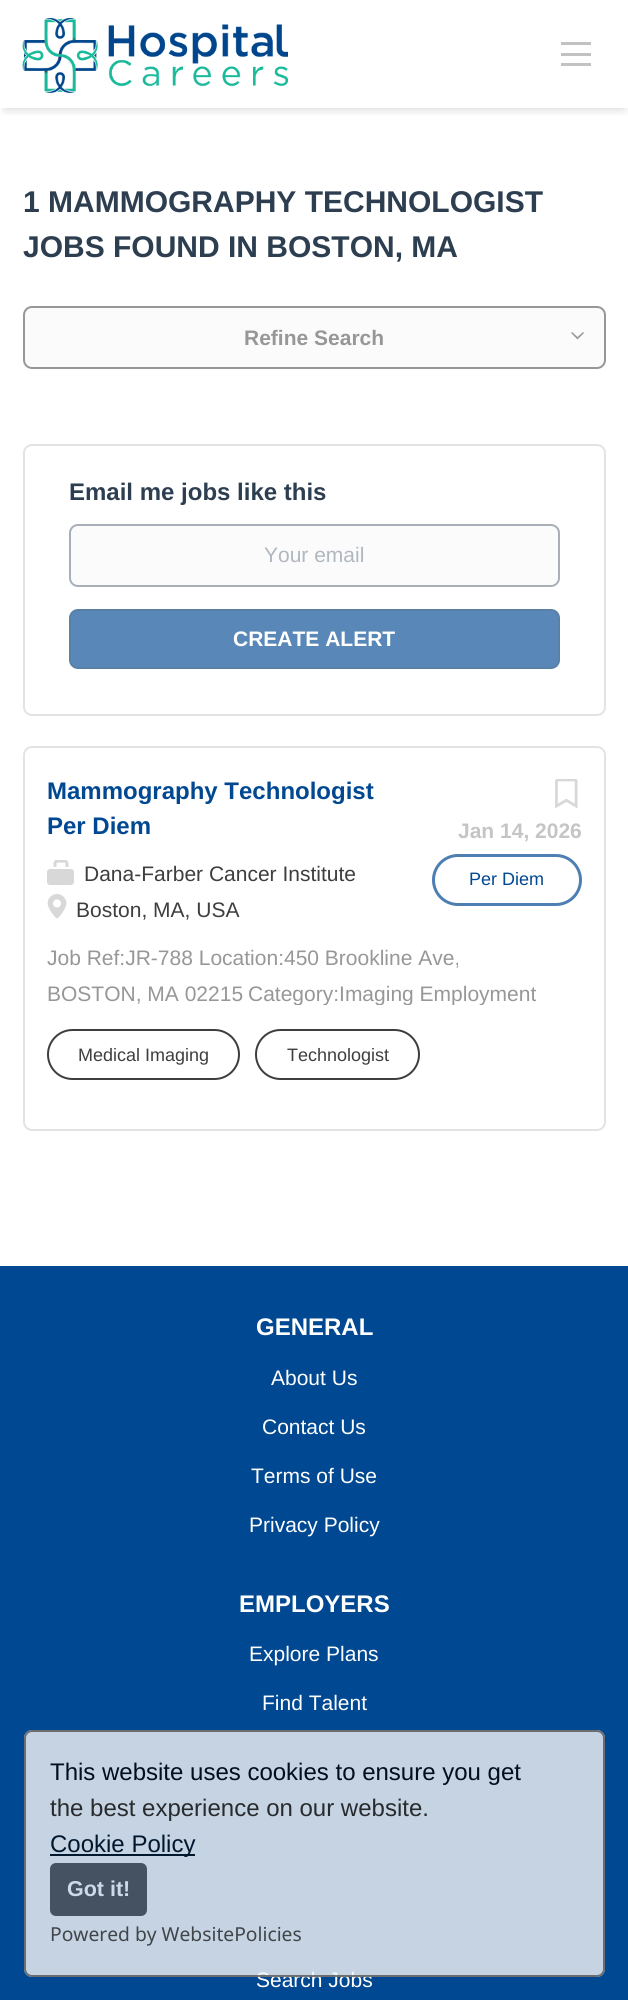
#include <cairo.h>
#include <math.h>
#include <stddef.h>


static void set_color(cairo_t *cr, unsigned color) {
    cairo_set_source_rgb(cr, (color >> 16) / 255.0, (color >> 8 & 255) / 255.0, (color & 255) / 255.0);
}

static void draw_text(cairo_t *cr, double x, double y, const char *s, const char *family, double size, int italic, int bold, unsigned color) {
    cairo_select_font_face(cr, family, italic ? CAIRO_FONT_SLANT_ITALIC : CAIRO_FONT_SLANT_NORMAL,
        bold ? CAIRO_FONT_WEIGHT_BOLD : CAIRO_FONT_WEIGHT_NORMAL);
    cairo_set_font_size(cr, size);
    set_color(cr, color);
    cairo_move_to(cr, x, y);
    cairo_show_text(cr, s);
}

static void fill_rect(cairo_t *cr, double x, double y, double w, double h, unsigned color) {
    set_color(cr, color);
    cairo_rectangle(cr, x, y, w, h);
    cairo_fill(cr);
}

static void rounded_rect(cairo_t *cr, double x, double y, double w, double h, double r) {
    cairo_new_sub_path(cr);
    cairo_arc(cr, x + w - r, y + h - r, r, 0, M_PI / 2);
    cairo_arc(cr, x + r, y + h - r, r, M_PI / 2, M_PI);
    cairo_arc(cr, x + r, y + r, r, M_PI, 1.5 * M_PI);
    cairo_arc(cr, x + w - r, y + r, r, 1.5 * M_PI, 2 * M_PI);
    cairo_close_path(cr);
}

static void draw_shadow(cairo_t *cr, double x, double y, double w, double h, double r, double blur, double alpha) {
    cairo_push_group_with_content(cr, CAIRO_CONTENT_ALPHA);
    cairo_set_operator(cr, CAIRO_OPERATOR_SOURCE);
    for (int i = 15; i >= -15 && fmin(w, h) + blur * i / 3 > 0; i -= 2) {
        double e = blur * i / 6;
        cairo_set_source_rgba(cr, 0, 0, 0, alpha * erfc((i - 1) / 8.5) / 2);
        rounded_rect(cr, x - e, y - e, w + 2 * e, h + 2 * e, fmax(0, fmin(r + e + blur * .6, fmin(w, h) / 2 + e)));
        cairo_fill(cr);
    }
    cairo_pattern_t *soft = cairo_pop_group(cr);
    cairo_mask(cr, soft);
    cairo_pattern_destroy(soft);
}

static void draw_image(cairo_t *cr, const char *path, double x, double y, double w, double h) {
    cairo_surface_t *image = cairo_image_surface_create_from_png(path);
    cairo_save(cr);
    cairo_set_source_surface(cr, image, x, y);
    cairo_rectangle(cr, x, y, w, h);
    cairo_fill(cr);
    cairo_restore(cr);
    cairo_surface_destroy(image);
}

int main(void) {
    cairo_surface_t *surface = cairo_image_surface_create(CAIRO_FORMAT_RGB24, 628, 2000);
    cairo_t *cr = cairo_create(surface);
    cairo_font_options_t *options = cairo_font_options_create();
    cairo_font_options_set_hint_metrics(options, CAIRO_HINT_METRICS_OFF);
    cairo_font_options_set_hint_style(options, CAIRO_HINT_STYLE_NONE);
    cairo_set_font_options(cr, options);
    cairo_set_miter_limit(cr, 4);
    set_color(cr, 0xFFFFFF);
    cairo_paint(cr);
    cairo_save(cr);
    cairo_rectangle(cr, 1, 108, 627, 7);
    cairo_clip(cr);
    set_color(cr, 0x000000);
    draw_shadow(cr, 6, 9, 617, 96, 0, 7, 0.3);
    cairo_restore(cr);
    draw_image(cr, "assets/img1.png", 22, 18, 266, 75);
    fill_rect(cr, 561, 53, 30, 3, 0xC2C2C2);
    fill_rect(cr, 561, 42, 30, 3, 0xC2C2C2);
    fill_rect(cr, 561, 63, 30, 3, 0xC2C2C2);
    draw_text(cr, 23, 212, "1 MAMMOGRAPHY TECHNOLOGIST", "Liberation Sans", 30, 0, 1, 0x2D3E50);
    draw_text(cr, 23, 257, "JOBS FOUND IN BOSTON, MA", "Liberation Sans", 30, 0, 1, 0x2D3E50);
    set_color(cr, 0xFBFBFB);
    rounded_rect(cr, 24, 307, 581, 61, 8);
    cairo_fill_preserve(cr);
    set_color(cr, 0x979797);
    cairo_stroke(cr);
    draw_text(cr, 244, 345, "Refine Search", "Liberation Sans", 21, 0, 1, 0x979797);
    cairo_new_path(cr);
    cairo_move_to(cr, 584, 333);
    cairo_line_to(cr, 577.5, 339.5);
    cairo_line_to(cr, 577.5, 337);
    cairo_line_to(cr, 583, 332);
    cairo_close_path(cr);
    cairo_fill(cr);
    cairo_set_source_rgba(cr, 0, 0, 0, 0.4);
    cairo_new_path(cr);
    cairo_move_to(cr, 577.5, 339.5);
    cairo_line_to(cr, 571, 333);
    cairo_line_to(cr, 572, 332);
    cairo_line_to(cr, 577.5, 337);
    cairo_close_path(cr);
    cairo_fill(cr);
    rounded_rect(cr, 24, 445, 581, 270, 8);
    set_color(cr, 0xE3E3E3);
    cairo_stroke(cr);
    draw_text(cr, 69, 500, "Email me jobs like this", "Liberation Sans", 24, 0, 1, 0x2D3E50);
    set_color(cr, 0xFBFBFB);
    rounded_rect(cr, 70, 525, 489, 61, 8);
    cairo_fill_preserve(cr);
    set_color(cr, 0xA8AFB7);
    cairo_stroke(cr);
    draw_text(cr, 264, 562, "Your email", "Liberation Sans", 21, 0, 0, 0xB1B7BF);
    set_color(cr, 0x5988B8);
    rounded_rect(cr, 70, 610, 489, 58, 8);
    cairo_fill_preserve(cr);
    set_color(cr, 0x5980A7);
    cairo_stroke(cr);
    draw_text(cr, 233, 646, "CREATE ALERT", "Liberation Sans", 21, 0, 1, 0xFFFFFF);
    rounded_rect(cr, 24, 747, 581, 383, 8);
    set_color(cr, 0xE3E3E3);
    cairo_stroke(cr);
    draw_text(cr, 47, 799, "Mammography Technologist", "Liberation Sans", 24, 0, 1, 0x004891);
    draw_text(cr, 47, 834, "Per Diem", "Liberation Sans", 24, 0, 1, 0x004891);
    draw_image(cr, "assets/img2.png", 555, 779, 23, 30);
    draw_text(cr, 458, 838, "Jan 14, 2026", "Liberation Sans", 21, 0, 1, 0xC5C5C5);
    rounded_rect(cr, 433.5, 855.5, 147, 49, 24.5);
    set_color(cr, 0x4D7FB2);
    cairo_set_line_width(cr, 3);
    cairo_stroke(cr);
    draw_text(cr, 469, 885, "Per Diem", "Liberation Sans", 18, 0, 0, 0x004891);
    set_color(cr, 0xD8D8D8);
    rounded_rect(cr, 47, 869, 27, 16, 3);
    cairo_fill(cr);
    cairo_save(cr);
    cairo_rectangle(cr, 47, 860, 28, 25);
    cairo_clip(cr);
    cairo_new_path(cr);
    cairo_move_to(cr, 55, 867);
    cairo_curve_to(cr, 55, 861, 54.5, 861, 61, 861);
    cairo_curve_to(cr, 67, 861, 67, 861, 67, 867);
    cairo_stroke(cr);
    cairo_restore(cr);
    draw_text(cr, 84, 881, "Dana-Farber Cancer Institute", "Liberation Sans", 21, 0, 0, 0x3E3E3E);
    draw_image(cr, "assets/img3.png", 47, 894, 20, 25);
    draw_text(cr, 76, 917, "Boston, MA, USA", "Liberation Sans", 21, 0, 0, 0x3E3E3E);
    draw_text(cr, 47, 965, "Job Ref:JR-788 Location:450 Brookline Ave,", "Liberation Sans", 21, 0, 0, 0x979797);
    draw_text(cr, 47, 1001, "BOSTON, MA 02215", "Liberation Sans", 21, 0, 0, 0x979797);
    cairo_save(cr);
    cairo_rectangle(cr, 47, 939, 535, 66);
    cairo_clip(cr);
    draw_text(cr, 248, 1001, "Category:Imaging Employment", "Liberation Sans", 21, 0, 0, 0x979797);
    cairo_restore(cr);
    rounded_rect(cr, 48, 1030, 191, 49, 24.5);
    set_color(cr, 0x3E3E3E);
    cairo_set_line_width(cr, 2);
    cairo_stroke(cr);
    draw_text(cr, 78, 1061, "Medical Imaging", "Liberation Sans", 18, 0, 0, 0x3E3E3E);
    rounded_rect(cr, 256, 1030, 163, 49, 24.5);
    cairo_stroke(cr);
    draw_text(cr, 287, 1061, "Technologist", "Liberation Sans", 18, 0, 0, 0x3E3E3E);
    fill_rect(cr, 0, 1266, 628, 734, 0x004891);
    draw_text(cr, 256, 1335, "GENERAL", "Liberation Sans", 24, 0, 1, 0xFFFFFF);
    draw_text(cr, 271, 1385, "About Us", "Liberation Sans", 21, 0, 0, 0xFFFFFF);
    draw_text(cr, 262, 1434, "Contact Us", "Liberation Sans", 21, 0, 0, 0xFFFFFF);
    draw_text(cr, 251, 1483, "Terms of Use", "Liberation Sans", 21, 0, 0, 0xFFFFFF);
    draw_text(cr, 249, 1532, "Privacy Policy", "Liberation Sans", 21, 0, 0, 0xFFFFFF);
    draw_text(cr, 239, 1612, "EMPLOYERS", "Liberation Sans", 24, 0, 1, 0xFFFFFF);
    draw_text(cr, 249, 1661, "Explore Plans", "Liberation Sans", 21, 0, 0, 0xFFFFFF);
    draw_text(cr, 262, 1710, "Find Talent", "Liberation Sans", 21, 0, 0, 0xFFFFFF);
    draw_text(cr, 256, 1987, "Search Jobs", "Liberation Sans", 21, 0, 0, 0xFFFFFF);
    cairo_set_source_rgba(cr, 0.965, 0.965, 0.965, 0.8);
    rounded_rect(cr, 24, 1730, 581, 247, 8);
    cairo_fill(cr);
    rounded_rect(cr, 25, 1731, 579, 245, 7);
    cairo_set_source_rgba(cr, 0.333, 0.333, 0.333, 0.8);
    cairo_stroke(cr);
    draw_text(cr, 50, 1780, "This website uses cookies to ensure you get", "Liberation Sans", 24, 0, 0, 0x000E1D);
    draw_text(cr, 50, 1816, "the best experience on our website.", "Liberation Sans", 24, 0, 0, 0x282B2D);
    fill_rect(cr, 50, 1854, 145, 2, 0x00172E);
    draw_text(cr, 50, 1852, "Cookie Policy", "Liberation Sans", 24, 0, 0, 0x00172E);
    set_color(cr, 0x445261);
    rounded_rect(cr, 50, 1863, 97, 53, 6);
    cairo_fill(cr);
    draw_text(cr, 67, 1896, "Got it!", "Liberation Sans", 21.5, 0, 1, 0xCCDAE9);
    draw_text(cr, 50, 1941, "Powered by WebsitePolicies", "Noto Sans", 19.25, 0, 0, 0x404549);
    cairo_surface_write_to_png(surface, "output.png");
    cairo_font_options_destroy(options);
    cairo_destroy(cr);
    cairo_surface_destroy(surface);
    return 0;
}
